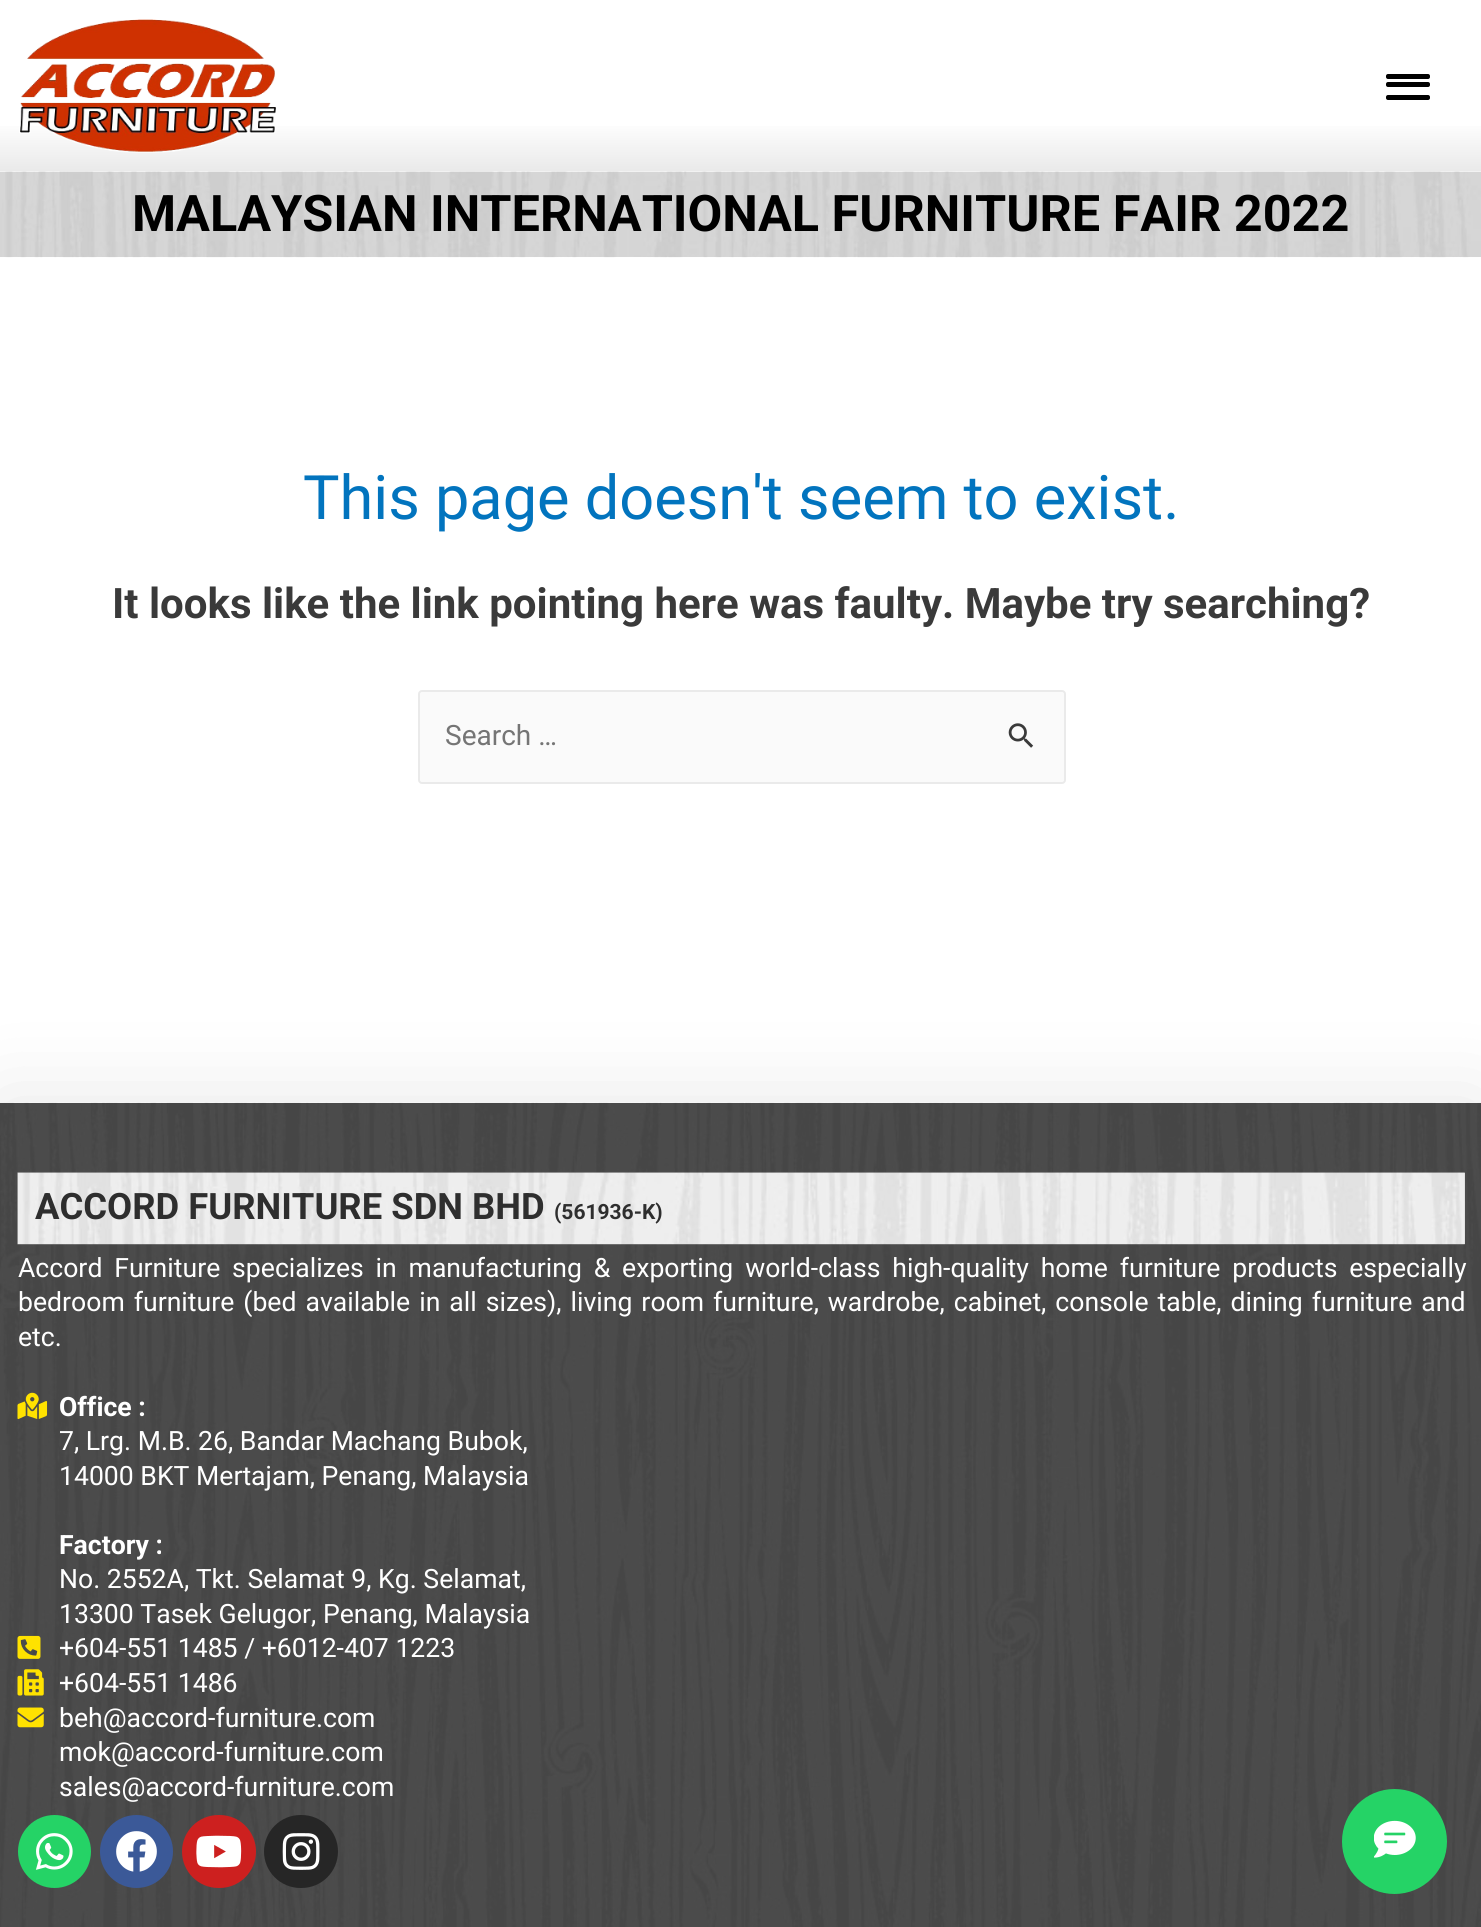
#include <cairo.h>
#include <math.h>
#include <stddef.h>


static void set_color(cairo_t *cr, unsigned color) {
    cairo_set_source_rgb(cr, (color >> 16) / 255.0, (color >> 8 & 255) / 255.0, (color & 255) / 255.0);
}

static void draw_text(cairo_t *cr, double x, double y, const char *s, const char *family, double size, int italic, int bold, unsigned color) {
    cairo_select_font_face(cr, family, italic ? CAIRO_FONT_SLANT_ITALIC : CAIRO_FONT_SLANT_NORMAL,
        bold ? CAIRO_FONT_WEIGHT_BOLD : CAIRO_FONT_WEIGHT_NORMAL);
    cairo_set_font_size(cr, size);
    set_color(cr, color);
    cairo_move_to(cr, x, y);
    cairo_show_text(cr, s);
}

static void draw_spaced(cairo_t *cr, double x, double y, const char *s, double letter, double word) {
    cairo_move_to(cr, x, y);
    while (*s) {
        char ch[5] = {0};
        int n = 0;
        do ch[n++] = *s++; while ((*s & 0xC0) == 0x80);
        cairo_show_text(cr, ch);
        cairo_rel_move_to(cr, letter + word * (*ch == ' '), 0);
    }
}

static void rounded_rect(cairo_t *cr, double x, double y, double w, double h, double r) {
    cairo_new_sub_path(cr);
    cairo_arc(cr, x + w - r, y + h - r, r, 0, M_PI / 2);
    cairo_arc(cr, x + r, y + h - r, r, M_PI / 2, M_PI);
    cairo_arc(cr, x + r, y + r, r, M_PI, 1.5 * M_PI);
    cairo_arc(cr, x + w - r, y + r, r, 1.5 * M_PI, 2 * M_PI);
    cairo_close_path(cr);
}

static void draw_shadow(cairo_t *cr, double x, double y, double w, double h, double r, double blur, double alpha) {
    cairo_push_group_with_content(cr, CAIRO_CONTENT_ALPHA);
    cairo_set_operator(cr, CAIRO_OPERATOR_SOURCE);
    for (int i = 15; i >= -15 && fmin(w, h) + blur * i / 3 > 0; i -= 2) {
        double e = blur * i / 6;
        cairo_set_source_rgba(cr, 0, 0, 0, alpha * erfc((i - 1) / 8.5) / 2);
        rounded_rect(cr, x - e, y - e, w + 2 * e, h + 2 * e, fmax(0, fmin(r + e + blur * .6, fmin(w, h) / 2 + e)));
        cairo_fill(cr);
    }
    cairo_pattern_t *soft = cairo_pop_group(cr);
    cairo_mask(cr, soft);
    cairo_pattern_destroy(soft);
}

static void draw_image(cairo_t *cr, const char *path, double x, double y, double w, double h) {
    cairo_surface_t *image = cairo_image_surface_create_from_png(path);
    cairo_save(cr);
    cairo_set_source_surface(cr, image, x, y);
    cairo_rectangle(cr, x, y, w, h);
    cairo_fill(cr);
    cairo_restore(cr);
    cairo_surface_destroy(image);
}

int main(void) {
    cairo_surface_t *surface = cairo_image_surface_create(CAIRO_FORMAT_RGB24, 1481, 1927);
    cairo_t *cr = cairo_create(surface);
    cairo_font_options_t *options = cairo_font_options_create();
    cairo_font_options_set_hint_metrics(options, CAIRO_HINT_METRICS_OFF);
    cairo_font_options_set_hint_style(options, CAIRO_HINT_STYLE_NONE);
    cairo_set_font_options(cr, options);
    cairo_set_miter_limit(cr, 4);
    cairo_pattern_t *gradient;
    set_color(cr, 0xFFFFFF);
    cairo_paint(cr);
    gradient = cairo_pattern_create_linear(741, 0, 741, 172);
    cairo_pattern_add_color_stop_rgba(gradient, 0.7, 1, 1, 1, 1);
    cairo_pattern_add_color_stop_rgba(gradient, 1, 0.914, 0.914, 0.914, 1);
    cairo_set_source(cr, gradient);
    cairo_pattern_destroy(gradient);
    cairo_rectangle(cr, 0, 126, 1481, 46);
    cairo_fill(cr);
    draw_image(cr, "assets/img1.png", 19, 19, 257, 134);
    set_color(cr, 0x000000);
    rounded_rect(cr, 1386, 74, 44, 5, 2);
    cairo_fill(cr);
    rounded_rect(cr, 1386, 82, 44, 5, 2);
    cairo_fill(cr);
    rounded_rect(cr, 1386, 95, 44, 5, 2);
    cairo_fill(cr);
    draw_image(cr, "assets/img2.png", 0, 171, 1481, 87);
    draw_text(cr, 132, 231, "MALAYSIAN INTERNATIONAL FURNITURE FAIR 2022", "Roboto", 50.4, 0, 1, 0x000000);
    draw_text(cr, 303, 519, "This page doesn't seem to exist.", "Roboto", 61.25, 0, 0, 0x0274BE);
    draw_text(cr, 112, 618, "It looks like the link pointing here was faulty. Maybe try searching?", "Roboto", 42, 0, 1, 0x3A3A3A);
    set_color(cr, 0xFAFAFA);
    rounded_rect(cr, 419, 691, 646, 92, 3);
    cairo_fill_preserve(cr);
    set_color(cr, 0xEAEAEA);
    cairo_stroke(cr);
    draw_text(cr, 445, 745, "Search …", "Roboto", 28, 0, 0, 0x757575);
    draw_image(cr, "assets/img3.png", 1008, 723, 26, 25);
    set_color(cr, 0x000000);
    draw_shadow(cr, 0, 1103, 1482, 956, 0, 44, 0.1);
    draw_image(cr, "assets/img4.png", 0, 1102, 1481, 825);
    cairo_set_source_rgba(cr, 0.855, 0.855, 0.855, 0.8);
    cairo_rectangle(cr, 18, 1173, 1447, 71);
    cairo_fill(cr);
    draw_image(cr, "assets/img5.png", 17, 1172, 1448, 73);
    draw_text(cr, 35, 1219, "ACCORD FURNITURE SDN BHD", "Roboto", 36.4, 0, 1, 0x2E2E2E);
    draw_text(cr, 554, 1219, "(561936-K)", "Roboto", 21, 0, 1, 0x2E2E2E);
    cairo_select_font_face(cr, "Roboto", CAIRO_FONT_SLANT_NORMAL, CAIRO_FONT_WEIGHT_NORMAL);
    cairo_set_font_size(cr, 26.6);
    set_color(cr, 0xFFFFFF);
    draw_spaced(cr, 18, 1277, "Accord Furniture specializes in manufacturing & exporting world-class high-quality home furniture products especially", 0, 5.25);
    draw_spaced(cr, 18, 1311, "bedroom furniture (bed available in all sizes), living room furniture, wardrobe, cabinet, console table, dining furniture and", 0, 2.4);
    draw_text(cr, 18, 1346, "etc.", "Roboto", 26.6, 0, 0, 0xFFFFFF);
    draw_image(cr, "assets/img6.png", 17, 1392, 31, 27);
    draw_text(cr, 59, 1416, "Office :", "Roboto", 26.6, 0, 1, 0xFFFFFF);
    draw_text(cr, 59, 1450, "7, Lrg. M.B. 26, Bandar Machang Bubok,", "Roboto", 26.6, 0, 0, 0xFFFFFF);
    draw_text(cr, 59, 1485, "14000 BKT Mertajam, Penang, Malaysia", "Roboto", 26.6, 0, 0, 0xFFFFFF);
    draw_text(cr, 59, 1554, "Factory :", "Roboto", 26.6, 0, 1, 0xFFFFFF);
    draw_text(cr, 59, 1588, "No. 2552A, Tkt. Selamat 9, Kg. Selamat,", "Roboto", 26.6, 0, 0, 0xFFFFFF);
    draw_text(cr, 59, 1623, "13300 Tasek Gelugor, Penang, Malaysia", "Roboto", 26.6, 0, 0, 0xFFFFFF);
    draw_image(cr, "assets/img7.png", 17, 1635, 24, 24);
    draw_text(cr, 59, 1657, "+604-551 1485 / +6012-407 1223", "Roboto", 26.6, 0, 0, 0xFFFFFF);
    draw_image(cr, "assets/img8.png", 17, 1669, 27, 27);
    draw_text(cr, 59, 1692, "+604-551 1486", "Roboto", 26.6, 0, 0, 0xFFFFFF);
    draw_image(cr, "assets/img9.png", 17, 1707, 27, 21);
    draw_text(cr, 59, 1727, "beh@accord-furniture.com", "Roboto", 26.6, 0, 0, 0xFFFFFF);
    draw_text(cr, 59, 1761, "mok@accord-furniture.com", "Roboto", 26.6, 0, 0, 0xFFFFFF);
    draw_text(cr, 59, 1796, "sales@accord-furniture.com", "Roboto", 26.6, 0, 0, 0xFFFFFF);
    set_color(cr, 0x25D366);
    cairo_new_path(cr);
    cairo_arc(cr, 54.5, 1851.5, 36.5, 0, 2 * M_PI);
    cairo_fill(cr);
    draw_image(cr, "assets/img10.png", 35, 1833, 38, 37);
    set_color(cr, 0x3B5998);
    cairo_arc(cr, 136.5, 1851.5, 36.5, 0, 2 * M_PI);
    cairo_fill(cr);
    draw_image(cr, "assets/img11.png", 116, 1831, 41, 41);
    set_color(cr, 0xCD201F);
    rounded_rect(cr, 182, 1815, 74, 73, 36.5);
    cairo_fill(cr);
    draw_image(cr, "assets/img12.png", 196, 1835, 46, 33);
    set_color(cr, 0x262626);
    rounded_rect(cr, 264, 1815, 74, 73, 36.5);
    cairo_fill(cr);
    draw_image(cr, "assets/img13.png", 282, 1833, 38, 37);
    set_color(cr, 0x25D366);
    cairo_arc(cr, 1394.5, 1841.5, 52.5, 0, 2 * M_PI);
    cairo_fill(cr);
    draw_image(cr, "assets/img14.png", 1374, 1820, 42, 38);
    cairo_surface_write_to_png(surface, "output.png");
    cairo_font_options_destroy(options);
    cairo_destroy(cr);
    cairo_surface_destroy(surface);
    return 0;
}
